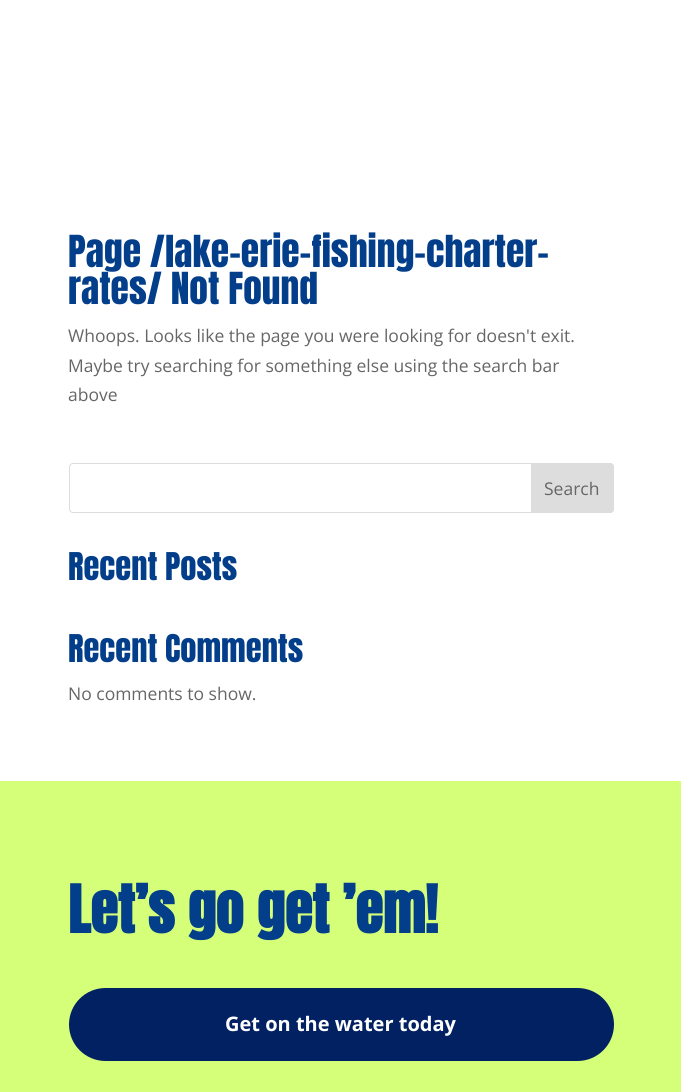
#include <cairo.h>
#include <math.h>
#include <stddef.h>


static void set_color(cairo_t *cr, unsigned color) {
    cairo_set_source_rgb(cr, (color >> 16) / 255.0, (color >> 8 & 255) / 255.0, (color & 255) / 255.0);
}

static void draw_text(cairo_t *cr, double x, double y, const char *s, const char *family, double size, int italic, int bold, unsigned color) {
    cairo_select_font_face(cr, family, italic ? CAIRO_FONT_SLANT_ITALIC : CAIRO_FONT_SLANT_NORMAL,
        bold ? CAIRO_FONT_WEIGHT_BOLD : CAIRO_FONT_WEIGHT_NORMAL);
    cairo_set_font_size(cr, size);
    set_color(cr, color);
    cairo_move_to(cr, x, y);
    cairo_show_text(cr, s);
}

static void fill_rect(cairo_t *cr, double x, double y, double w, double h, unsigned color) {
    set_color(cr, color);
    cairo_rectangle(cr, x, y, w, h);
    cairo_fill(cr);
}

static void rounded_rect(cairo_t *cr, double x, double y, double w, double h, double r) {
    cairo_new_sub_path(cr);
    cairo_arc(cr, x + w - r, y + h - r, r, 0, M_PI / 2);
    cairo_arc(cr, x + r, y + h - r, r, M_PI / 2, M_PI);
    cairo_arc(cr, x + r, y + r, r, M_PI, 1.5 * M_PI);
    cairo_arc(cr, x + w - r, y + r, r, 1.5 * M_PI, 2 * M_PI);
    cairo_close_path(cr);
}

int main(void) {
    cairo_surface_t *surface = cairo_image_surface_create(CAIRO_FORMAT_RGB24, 681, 1092);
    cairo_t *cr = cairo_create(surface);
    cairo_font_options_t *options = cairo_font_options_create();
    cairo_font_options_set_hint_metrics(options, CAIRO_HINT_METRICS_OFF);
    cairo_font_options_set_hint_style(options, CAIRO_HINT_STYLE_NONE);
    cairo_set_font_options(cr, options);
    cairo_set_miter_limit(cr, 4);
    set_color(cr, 0xFFFFFF);
    cairo_paint(cr);
    draw_text(cr, 68, 267, "Page /lake-erie-fishing-charter-", "Anton", 37.5, 0, 0, 0x023E8A);
    draw_text(cr, 68, 304, "rates/ Not Found", "Anton", 37.5, 0, 0, 0x023E8A);
    draw_text(cr, 68, 342, "Whoops. Looks like the page you were looking for doesn't exit.", "Open Sans", 17.5, 0, 0, 0x666666);
    draw_text(cr, 68, 372, "Maybe try searching for something else using the search bar", "Open Sans", 17.5, 0, 0, 0x666666);
    draw_text(cr, 68, 401, "above", "Open Sans", 17.5, 0, 0, 0x666666);
    rounded_rect(cr, 69.5, 463.5, 544, 49, 3.5);
    set_color(cr, 0xDDDDDD);
    cairo_set_line_width(cr, 1);
    cairo_stroke(cr);
    cairo_new_path(cr);
    cairo_move_to(cr, 531.5, 463.5);
    cairo_line_to(cr, 610, 463.5);
    cairo_curve_to(cr, 612, 463.5, 613.5, 465, 613.5, 467);
    cairo_line_to(cr, 613.5, 509);
    cairo_curve_to(cr, 613.5, 511, 612, 512.5, 610, 512.5);
    cairo_line_to(cr, 531.5, 512.5);
    cairo_close_path(cr);
    cairo_fill_preserve(cr);
    cairo_stroke(cr);
    draw_text(cr, 544, 495, "Search", "Open Sans", 17.5, 0, 0, 0x666666);
    draw_text(cr, 68, 580, "Recent Posts", "Anton", 32.5, 0, 0, 0x023E8A);
    draw_text(cr, 68, 662, "Recent Comments", "Anton", 32.5, 0, 0, 0x023E8A);
    draw_text(cr, 68, 700, "No comments to show.", "Open Sans", 17.5, 0, 0, 0x666666);
    fill_rect(cr, 0, 781, 681, 311, 0xD6FF79);
    draw_text(cr, 68, 933, "Let’s go get ’em!", "Anton", 56, 0, 1, 0x023E8A);
    set_color(cr, 0x022163);
    rounded_rect(cr, 69, 988, 545, 73, 36.5);
    cairo_fill(cr);
    draw_text(cr, 225, 1031, "Get on the water today", "Open Sans", 20, 0, 1, 0xFFFFFF);
    cairo_surface_write_to_png(surface, "output.png");
    cairo_font_options_destroy(options);
    cairo_destroy(cr);
    cairo_surface_destroy(surface);
    return 0;
}
